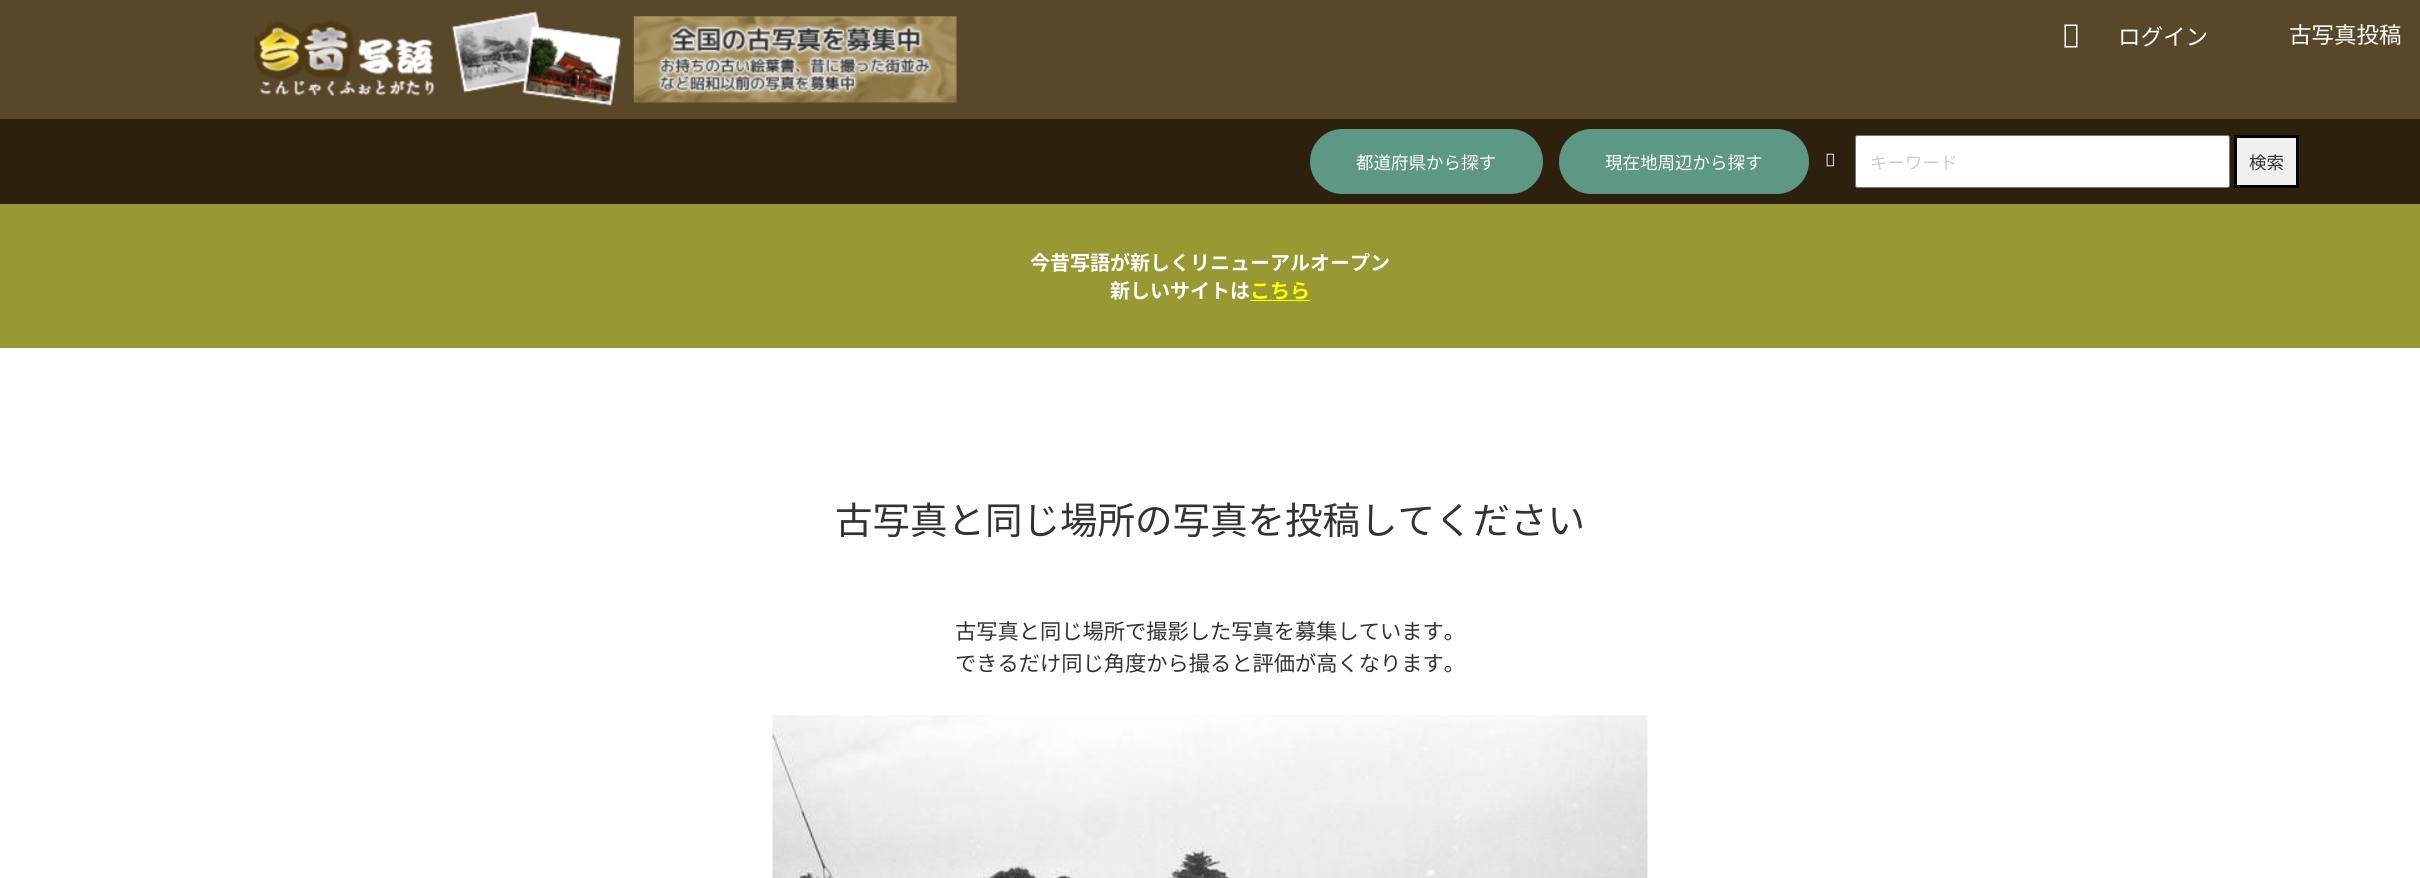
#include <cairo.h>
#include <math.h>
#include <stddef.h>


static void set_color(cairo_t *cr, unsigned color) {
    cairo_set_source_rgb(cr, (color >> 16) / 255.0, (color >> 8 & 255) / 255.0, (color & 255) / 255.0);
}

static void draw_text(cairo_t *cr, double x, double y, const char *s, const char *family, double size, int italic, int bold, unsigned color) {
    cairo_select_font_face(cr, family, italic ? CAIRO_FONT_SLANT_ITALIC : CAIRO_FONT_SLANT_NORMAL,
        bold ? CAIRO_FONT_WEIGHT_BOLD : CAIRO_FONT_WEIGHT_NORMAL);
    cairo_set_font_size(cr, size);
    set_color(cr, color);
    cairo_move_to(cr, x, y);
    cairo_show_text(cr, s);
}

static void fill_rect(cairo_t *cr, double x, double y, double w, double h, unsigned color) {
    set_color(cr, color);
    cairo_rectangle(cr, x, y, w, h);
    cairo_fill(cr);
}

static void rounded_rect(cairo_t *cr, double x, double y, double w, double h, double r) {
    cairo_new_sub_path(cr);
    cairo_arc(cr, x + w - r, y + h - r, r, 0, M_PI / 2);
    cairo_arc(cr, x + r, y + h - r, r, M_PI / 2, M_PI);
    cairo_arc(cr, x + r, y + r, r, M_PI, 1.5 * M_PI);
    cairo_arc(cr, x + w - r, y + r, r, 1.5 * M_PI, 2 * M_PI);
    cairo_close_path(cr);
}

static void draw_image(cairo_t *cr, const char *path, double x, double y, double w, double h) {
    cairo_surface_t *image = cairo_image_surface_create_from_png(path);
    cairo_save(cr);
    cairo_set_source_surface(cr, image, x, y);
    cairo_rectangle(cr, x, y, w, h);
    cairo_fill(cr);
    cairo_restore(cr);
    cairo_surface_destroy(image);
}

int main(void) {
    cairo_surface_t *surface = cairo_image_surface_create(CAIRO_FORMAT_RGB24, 2420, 878);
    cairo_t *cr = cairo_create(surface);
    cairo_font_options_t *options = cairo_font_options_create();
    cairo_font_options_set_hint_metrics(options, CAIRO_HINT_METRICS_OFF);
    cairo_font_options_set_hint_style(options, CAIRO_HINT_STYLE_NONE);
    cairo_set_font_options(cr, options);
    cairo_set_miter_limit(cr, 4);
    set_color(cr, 0x999933);
    cairo_paint(cr);
    fill_rect(cr, 0, 0, 2420, 119, 0x594729);
    draw_image(cr, "assets/img1.png", 254, 11, 367, 95);
    draw_image(cr, "assets/img2.png", 633, 16, 324, 88);
    set_color(cr, 0xFFFFFF);
    cairo_new_path(cr);
    cairo_move_to(cr, 2064.5, 47.5);
    cairo_line_to(cr, 2064.5, 24.5);
    cairo_line_to(cr, 2077.5, 24.5);
    cairo_line_to(cr, 2077.5, 47.5);
    cairo_close_path(cr);
    cairo_move_to(cr, 2066, 46);
    cairo_line_to(cr, 2076, 46);
    cairo_line_to(cr, 2076, 26);
    cairo_line_to(cr, 2066, 26);
    cairo_close_path(cr);
    cairo_fill(cr);
    draw_text(cr, 2118, 45, "ログイン", "Noto Sans JP", 22.5, 0, 0, 0xFFFFFF);
    draw_text(cr, 2289, 43, "古写真投稿", "Noto Sans JP", 22.5, 0, 0, 0xFFFFFF);
    fill_rect(cr, 0, 119, 2420, 85, 0x2D210D);
    set_color(cr, 0x5C9884);
    rounded_rect(cr, 1311.5, 130.5, 230, 62, 31);
    cairo_fill_preserve(cr);
    cairo_set_line_width(cr, 3);
    cairo_stroke(cr);
    draw_text(cr, 1356, 169, "都道府県から探す", "Noto Sans JP", 17.5, 0, 0, 0xFFFFFF);
    set_color(cr, 0x5C9884);
    rounded_rect(cr, 1560.5, 130.5, 247, 62, 31);
    cairo_fill_preserve(cr);
    cairo_stroke(cr);
    draw_text(cr, 1605, 169, "現在地周辺から探す", "Noto Sans JP", 17.5, 0, 0, 0xFFFFFF);
    draw_image(cr, "assets/img3.png", 1826, 153, 8, 14);
    rounded_rect(cr, 1855.5, 135.5, 374, 52, 2);
    cairo_fill_preserve(cr);
    set_color(cr, 0x767676);
    cairo_set_line_width(cr, 1);
    cairo_stroke(cr);
    draw_text(cr, 1870, 169, "キーワード", "Noto Sans JP", 17.5, 0, 0, 0xCCCCCC);
    set_color(cr, 0xEFEFEF);
    cairo_rectangle(cr, 2235.5, 136.5, 62, 50);
    cairo_fill_preserve(cr);
    set_color(cr, 0x000000);
    cairo_set_line_width(cr, 3);
    cairo_stroke(cr);
    draw_text(cr, 2249, 169, "検索", "Noto Sans JP", 17.5, 0, 0, 0x333333);
    draw_text(cr, 1030, 270, "今昔写語が新しくリニューアルオープン", "Noto Sans JP", 20, 0, 1, 0xFFFFFF);
    draw_text(cr, 1110, 298, "新しいサイトは", "Noto Sans JP", 20, 0, 1, 0xFFFFFF);
    draw_text(cr, 1250, 298, "こちら", "Noto Sans JP", 20, 0, 1, 0xFFFF00);
    fill_rect(cr, 1250, 300, 60, 1, 0xFFFF00);
    fill_rect(cr, 0, 348, 2420, 530, 0xFFFFFF);
    draw_text(cr, 835, 534, "古写真と同じ場所の写真を投稿してください", "Noto Sans JP", 37.5, 0, 0, 0x333333);
    draw_text(cr, 955, 639, "古写真と同じ場所で撮影した写真を募集しています。", "Noto Sans JP", 21.25, 0, 0, 0x333333);
    draw_text(cr, 955, 671, "できるだけ同じ角度から撮ると評価が高くなります。", "Noto Sans JP", 21.25, 0, 0, 0x333333);
    draw_image(cr, "assets/img4.png", 772, 715, 876, 163);
    cairo_surface_write_to_png(surface, "output.png");
    cairo_font_options_destroy(options);
    cairo_destroy(cr);
    cairo_surface_destroy(surface);
    return 0;
}
